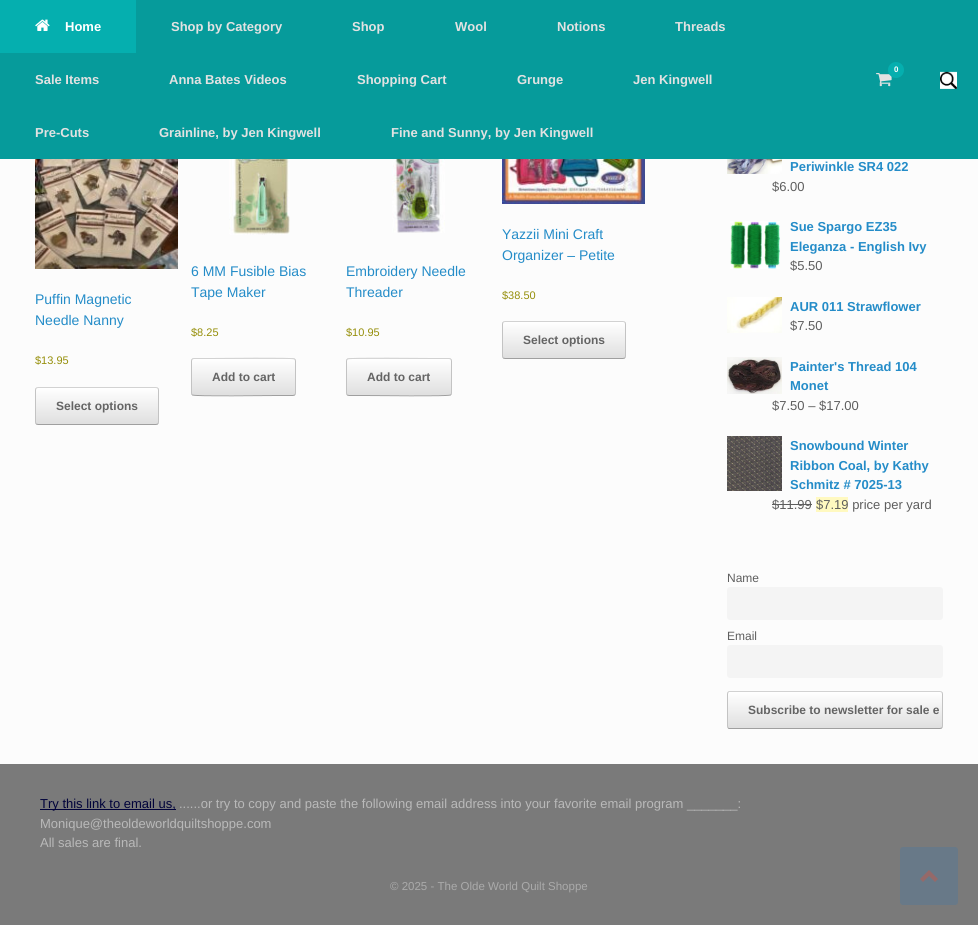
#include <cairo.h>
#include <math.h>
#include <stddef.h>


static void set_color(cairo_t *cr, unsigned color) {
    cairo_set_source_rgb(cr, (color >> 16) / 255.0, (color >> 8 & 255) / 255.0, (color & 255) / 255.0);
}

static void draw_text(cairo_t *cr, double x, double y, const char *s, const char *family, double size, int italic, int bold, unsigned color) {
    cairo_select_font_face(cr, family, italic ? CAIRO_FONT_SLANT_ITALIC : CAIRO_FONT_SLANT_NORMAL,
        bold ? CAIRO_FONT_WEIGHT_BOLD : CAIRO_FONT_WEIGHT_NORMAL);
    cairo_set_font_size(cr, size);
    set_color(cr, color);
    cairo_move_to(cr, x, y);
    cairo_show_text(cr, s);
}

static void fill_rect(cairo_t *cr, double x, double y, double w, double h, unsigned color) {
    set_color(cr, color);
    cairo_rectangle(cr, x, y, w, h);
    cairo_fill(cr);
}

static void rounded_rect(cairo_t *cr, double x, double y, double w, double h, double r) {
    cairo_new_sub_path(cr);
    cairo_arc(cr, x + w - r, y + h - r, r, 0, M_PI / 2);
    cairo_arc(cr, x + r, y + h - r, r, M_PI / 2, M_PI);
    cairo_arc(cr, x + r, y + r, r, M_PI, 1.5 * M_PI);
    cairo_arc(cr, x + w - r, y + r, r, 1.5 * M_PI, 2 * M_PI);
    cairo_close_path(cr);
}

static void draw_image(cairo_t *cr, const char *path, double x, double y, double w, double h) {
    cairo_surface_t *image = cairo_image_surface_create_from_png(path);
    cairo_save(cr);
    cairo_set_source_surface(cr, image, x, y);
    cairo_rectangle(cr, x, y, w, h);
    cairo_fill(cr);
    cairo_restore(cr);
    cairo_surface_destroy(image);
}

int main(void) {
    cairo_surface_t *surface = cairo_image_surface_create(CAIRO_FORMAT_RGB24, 978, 925);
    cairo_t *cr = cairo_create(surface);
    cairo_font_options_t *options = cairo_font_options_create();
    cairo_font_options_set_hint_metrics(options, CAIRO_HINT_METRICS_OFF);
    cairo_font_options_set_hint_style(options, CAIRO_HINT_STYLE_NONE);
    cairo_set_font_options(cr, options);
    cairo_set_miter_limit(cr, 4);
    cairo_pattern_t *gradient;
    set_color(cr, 0x7A7A7A);
    cairo_paint(cr);
    fill_rect(cr, 0, 0, 978, 159, 0x069B9B);
    fill_rect(cr, 0, 0, 136, 53, 0x05AFAF);
    draw_image(cr, "assets/img1.png", 35, 19, 15, 12);
    draw_text(cr, 65, 31, "Home", "Liberation Sans", 13, 0, 1, 0xFFFFFF);
    draw_text(cr, 171, 31, "Shop by Category", "Liberation Sans", 13, 0, 1, 0xE2E2E2);
    draw_text(cr, 352, 31, "Shop", "Liberation Sans", 13, 0, 1, 0xE2E2E2);
    draw_text(cr, 455, 31, "Wool", "Liberation Sans", 13, 0, 1, 0xE2E2E2);
    draw_text(cr, 557, 31, "Notions", "Liberation Sans", 13, 0, 1, 0xE2E2E2);
    draw_text(cr, 675, 31, "Threads", "Liberation Sans", 13, 0, 1, 0xE2E2E2);
    draw_text(cr, 35, 84, "Sale Items", "Liberation Sans", 13, 0, 1, 0xE2E2E2);
    draw_text(cr, 169, 84, "Anna Bates Videos", "Liberation Sans", 13, 0, 1, 0xE2E2E2);
    draw_text(cr, 357, 84, "Shopping Cart", "Liberation Sans", 13, 0, 1, 0xE2E2E2);
    draw_text(cr, 517, 84, "Grunge", "Liberation Sans", 13, 0, 1, 0xE2E2E2);
    draw_text(cr, 633, 84, "Jen Kingwell", "Liberation Sans", 13, 0, 1, 0xE2E2E2);
    draw_text(cr, 35, 137, "Pre-Cuts", "Liberation Sans", 13, 0, 1, 0xE2E2E2);
    draw_text(cr, 159, 137, "Grainline, by Jen Kingwell", "Liberation Sans", 13, 0, 1, 0xE2E2E2);
    draw_text(cr, 391, 137, "Fine and Sunny, by Jen Kingwell", "Liberation Sans", 13, 0, 1, 0xE2E2E2);
    draw_image(cr, "assets/img2.png", 876, 73, 16, 14);
    set_color(cr, 0x05AFAF);
    cairo_arc(cr, 896, 70, 8, 0, 2 * M_PI);
    cairo_fill(cr);
    draw_text(cr, 894, 72, "0", "Liberation Sans", 8, 0, 1, 0xFFFFFF);
    draw_image(cr, "assets/img3.png", 940, 71, 17, 18);
    fill_rect(cr, 0, 159, 978, 605, 0xFCFCFC);
    draw_image(cr, "assets/img4.png", 35, 159, 143, 110);
    draw_text(cr, 35, 304, "Puffin Magnetic", "Liberation Sans", 14, 0, 0, 0x248CC8);
    draw_text(cr, 35, 325, "Needle Nanny", "Liberation Sans", 14, 0, 0, 0x248CC8);
    draw_text(cr, 35, 364, "$13.95", "Liberation Sans", 11, 0, 0, 0x958E09);
    cairo_save(cr);
    rounded_rect(cr, 35, 387, 124, 38, 3);
    cairo_clip(cr);
    gradient = cairo_pattern_create_linear(36, 424, 36, 388);
    cairo_pattern_add_color_stop_rgba(gradient, 0, 0.875, 0.875, 0.875, 1);
    cairo_pattern_add_color_stop_rgba(gradient, 1, 1, 1, 1, 1);
    cairo_set_source(cr, gradient);
    cairo_pattern_destroy(gradient);
    cairo_rectangle(cr, 35, 388, 124, 36);
    cairo_fill(cr);
    cairo_restore(cr);
    cairo_new_path(cr);
    cairo_move_to(cr, 36, 388);
    cairo_line_to(cr, 38, 387.5);
    cairo_line_to(cr, 136.5, 387.5);
    cairo_line_to(cr, 156, 387.5);
    cairo_line_to(cr, 158, 388);
    set_color(cr, 0xD2D2D2);
    cairo_set_line_width(cr, 1);
    cairo_stroke(cr);
    cairo_new_path(cr);
    cairo_move_to(cr, 158, 388);
    cairo_curve_to(cr, 158, 388.5, 158.5, 389.5, 158.5, 390);
    cairo_line_to(cr, 158.5, 422);
    cairo_curve_to(cr, 158.5, 422.5, 158, 423.5, 158, 424);
    set_color(cr, 0xC3C3C3);
    cairo_stroke(cr);
    cairo_new_path(cr);
    cairo_move_to(cr, 158, 424);
    cairo_line_to(cr, 156, 424.5);
    cairo_line_to(cr, 57.5, 424.5);
    cairo_line_to(cr, 38, 424.5);
    cairo_line_to(cr, 36, 424);
    set_color(cr, 0x9F9F9F);
    cairo_stroke(cr);
    cairo_new_path(cr);
    cairo_move_to(cr, 36, 424);
    cairo_curve_to(cr, 36, 423.5, 35.5, 422.5, 35.5, 422);
    cairo_line_to(cr, 35.5, 390);
    cairo_curve_to(cr, 35.5, 389.5, 36, 388.5, 36, 388);
    set_color(cr, 0xC3C3C3);
    cairo_stroke(cr);
    draw_text(cr, 56, 410, "Select options", "Liberation Sans", 12, 0, 1, 0x646464);
    draw_image(cr, "assets/img5.png", 229, 159, 61, 76);
    draw_text(cr, 191, 276, "6 MM Fusible Bias", "Liberation Sans", 14, 0, 0, 0x248CC8);
    draw_text(cr, 191, 297, "Tape Maker", "Liberation Sans", 14, 0, 0, 0x248CC8);
    draw_text(cr, 191, 336, "$8.25", "Liberation Sans", 11, 0, 0, 0x958E09);
    cairo_save(cr);
    rounded_rect(cr, 191, 358, 105, 38, 3);
    cairo_clip(cr);
    gradient = cairo_pattern_create_linear(192, 359, 192, 323);
    cairo_pattern_add_color_stop_rgba(gradient, 0, 0.875, 0.875, 0.875, 1);
    cairo_pattern_add_color_stop_rgba(gradient, 1, 1, 1, 1, 1);
    cairo_set_source(cr, gradient);
    cairo_pattern_destroy(gradient);
    cairo_rectangle(cr, 191, 358, 105, 1);
    cairo_fill(cr);
    gradient = cairo_pattern_create_linear(192, 395, 192, 359);
    cairo_pattern_add_color_stop_rgba(gradient, 0, 0.875, 0.875, 0.875, 1);
    cairo_pattern_add_color_stop_rgba(gradient, 1, 1, 1, 1, 1);
    cairo_set_source(cr, gradient);
    cairo_pattern_destroy(gradient);
    cairo_rectangle(cr, 191, 359, 105, 36);
    cairo_fill(cr);
    gradient = cairo_pattern_create_linear(192, 431, 192, 395);
    cairo_pattern_add_color_stop_rgba(gradient, 0, 0.875, 0.875, 0.875, 1);
    cairo_pattern_add_color_stop_rgba(gradient, 1, 1, 1, 1, 1);
    cairo_set_source(cr, gradient);
    cairo_pattern_destroy(gradient);
    cairo_rectangle(cr, 191, 395, 105, 1);
    cairo_fill(cr);
    cairo_restore(cr);
    cairo_new_path(cr);
    cairo_move_to(cr, 192, 359);
    cairo_line_to(cr, 194, 358.5);
    cairo_line_to(cr, 210.5, 358.5);
    cairo_curve_to(cr, 219, 358.5, 292.5, 357.5, 294.5, 359);
    cairo_line_to(cr, 295, 359);
    set_color(cr, 0xD2D2D2);
    cairo_stroke(cr);
    cairo_new_path(cr);
    cairo_move_to(cr, 295, 359);
    cairo_curve_to(cr, 295, 359.5, 295.5, 360.5, 295.5, 361);
    cairo_line_to(cr, 295.5, 393);
    cairo_curve_to(cr, 295.5, 393.5, 295, 394.5, 295, 395);
    set_color(cr, 0xC3C3C3);
    cairo_stroke(cr);
    cairo_new_path(cr);
    cairo_move_to(cr, 295, 395);
    cairo_line_to(cr, 293, 395.5);
    cairo_line_to(cr, 276.5, 395.5);
    cairo_curve_to(cr, 268, 395.5, 194.5, 396.5, 192.5, 395);
    cairo_line_to(cr, 192, 395);
    set_color(cr, 0x9F9F9F);
    cairo_stroke(cr);
    cairo_new_path(cr);
    cairo_move_to(cr, 192, 395);
    cairo_curve_to(cr, 192, 394.5, 191.5, 393.5, 191.5, 393);
    cairo_line_to(cr, 191.5, 361);
    cairo_curve_to(cr, 191.5, 360.5, 192, 359.5, 192, 359);
    set_color(cr, 0xC3C3C3);
    cairo_stroke(cr);
    draw_text(cr, 212, 381, "Add to cart", "Liberation Sans", 12, 0, 1, 0x646464);
    draw_image(cr, "assets/img6.png", 392, 159, 53, 74);
    draw_text(cr, 346, 276, "Embroidery Needle", "Liberation Sans", 14, 0, 0, 0x248CC8);
    draw_text(cr, 346, 297, "Threader", "Liberation Sans", 14, 0, 0, 0x248CC8);
    draw_text(cr, 346, 336, "$10.95", "Liberation Sans", 11, 0, 0, 0x958E09);
    cairo_save(cr);
    rounded_rect(cr, 346, 358, 106, 38, 3);
    cairo_clip(cr);
    gradient = cairo_pattern_create_linear(347, 359, 347, 323);
    cairo_pattern_add_color_stop_rgba(gradient, 0, 0.875, 0.875, 0.875, 1);
    cairo_pattern_add_color_stop_rgba(gradient, 1, 1, 1, 1, 1);
    cairo_set_source(cr, gradient);
    cairo_pattern_destroy(gradient);
    cairo_rectangle(cr, 346, 358, 106, 1);
    cairo_fill(cr);
    gradient = cairo_pattern_create_linear(347, 395, 347, 359);
    cairo_pattern_add_color_stop_rgba(gradient, 0, 0.875, 0.875, 0.875, 1);
    cairo_pattern_add_color_stop_rgba(gradient, 1, 1, 1, 1, 1);
    cairo_set_source(cr, gradient);
    cairo_pattern_destroy(gradient);
    cairo_rectangle(cr, 346, 359, 106, 36);
    cairo_fill(cr);
    gradient = cairo_pattern_create_linear(347, 431, 347, 395);
    cairo_pattern_add_color_stop_rgba(gradient, 0, 0.875, 0.875, 0.875, 1);
    cairo_pattern_add_color_stop_rgba(gradient, 1, 1, 1, 1, 1);
    cairo_set_source(cr, gradient);
    cairo_pattern_destroy(gradient);
    cairo_rectangle(cr, 346, 395, 106, 1);
    cairo_fill(cr);
    cairo_restore(cr);
    cairo_new_path(cr);
    cairo_move_to(cr, 347, 359);
    cairo_line_to(cr, 347.5, 359);
    cairo_curve_to(cr, 349.5, 357.5, 423.5, 358.5, 432.5, 358.5);
    cairo_line_to(cr, 449, 358.5);
    cairo_line_to(cr, 451, 359);
    set_color(cr, 0xD2D2D2);
    cairo_stroke(cr);
    cairo_new_path(cr);
    cairo_move_to(cr, 451, 359);
    cairo_curve_to(cr, 451, 359.5, 451.5, 360.5, 451.5, 361);
    cairo_line_to(cr, 451.5, 393);
    cairo_curve_to(cr, 451.5, 393.5, 451, 394.5, 451, 395);
    set_color(cr, 0xC3C3C3);
    cairo_stroke(cr);
    cairo_new_path(cr);
    cairo_move_to(cr, 451, 395);
    cairo_line_to(cr, 450.5, 395);
    cairo_curve_to(cr, 448.5, 396.5, 374.5, 395.5, 365.5, 395.5);
    cairo_line_to(cr, 349, 395.5);
    cairo_line_to(cr, 347, 395);
    set_color(cr, 0x9F9F9F);
    cairo_stroke(cr);
    cairo_new_path(cr);
    cairo_move_to(cr, 347, 395);
    cairo_curve_to(cr, 347, 394.5, 346.5, 393.5, 346.5, 393);
    cairo_line_to(cr, 346.5, 361);
    cairo_curve_to(cr, 346.5, 360.5, 347, 359.5, 347, 359);
    set_color(cr, 0xC3C3C3);
    cairo_stroke(cr);
    draw_text(cr, 367, 381, "Add to cart", "Liberation Sans", 12, 0, 1, 0x646464);
    draw_image(cr, "assets/img7.png", 502, 159, 143, 45);
    draw_text(cr, 502, 239, "Yazzii Mini Craft", "Liberation Sans", 14, 0, 0, 0x248CC8);
    draw_text(cr, 502, 260, "Organizer – Petite", "Liberation Sans", 14, 0, 0, 0x248CC8);
    draw_text(cr, 502, 299, "$38.50", "Liberation Sans", 11, 0, 0, 0x958E09);
    cairo_save(cr);
    rounded_rect(cr, 502, 321, 124, 38, 3);
    cairo_clip(cr);
    gradient = cairo_pattern_create_linear(503, 358, 503, 322);
    cairo_pattern_add_color_stop_rgba(gradient, 0, 0.875, 0.875, 0.875, 1);
    cairo_pattern_add_color_stop_rgba(gradient, 1, 1, 1, 1, 1);
    cairo_set_source(cr, gradient);
    cairo_pattern_destroy(gradient);
    cairo_rectangle(cr, 502, 322, 124, 36);
    cairo_fill(cr);
    cairo_restore(cr);
    cairo_new_path(cr);
    cairo_move_to(cr, 503, 322);
    cairo_line_to(cr, 505, 321.5);
    cairo_line_to(cr, 603.5, 321.5);
    cairo_line_to(cr, 623, 321.5);
    cairo_line_to(cr, 625, 322);
    set_color(cr, 0xD2D2D2);
    cairo_stroke(cr);
    cairo_new_path(cr);
    cairo_move_to(cr, 625, 322);
    cairo_curve_to(cr, 625, 322.5, 625.5, 323.5, 625.5, 324);
    cairo_line_to(cr, 625.5, 356);
    cairo_curve_to(cr, 625.5, 356.5, 625, 357.5, 625, 358);
    set_color(cr, 0xC3C3C3);
    cairo_stroke(cr);
    cairo_new_path(cr);
    cairo_move_to(cr, 625, 358);
    cairo_line_to(cr, 623, 358.5);
    cairo_line_to(cr, 505, 358.5);
    cairo_line_to(cr, 503, 358);
    set_color(cr, 0x9F9F9F);
    cairo_stroke(cr);
    cairo_new_path(cr);
    cairo_move_to(cr, 503, 358);
    cairo_curve_to(cr, 503, 357.5, 502.5, 356.5, 502.5, 356);
    cairo_line_to(cr, 502.5, 324);
    cairo_curve_to(cr, 502.5, 323.5, 503, 322.5, 503, 322);
    set_color(cr, 0xC3C3C3);
    cairo_stroke(cr);
    draw_text(cr, 523, 344, "Select options", "Liberation Sans", 12, 0, 1, 0x646464);
    draw_image(cr, "assets/img8.png", 727, 159, 55, 15);
    draw_text(cr, 790, 171, "Periwinkle SR4 022", "Liberation Sans", 13, 0, 1, 0x248CC8);
    draw_text(cr, 772, 191, "$6.00", "Liberation Sans", 13, 0, 0, 0x5E5E5E);
    draw_image(cr, "assets/img9.png", 730, 221, 50, 48);
    draw_text(cr, 790, 231, "Sue Spargo EZ35", "Liberation Sans", 13, 0, 1, 0x248CC8);
    draw_text(cr, 790, 251, "Eleganza - English Ivy", "Liberation Sans", 13, 0, 1, 0x248CC8);
    draw_text(cr, 790, 270, "$5.50", "Liberation Sans", 13, 0, 0, 0x5E5E5E);
    draw_image(cr, "assets/img10.png", 727, 297, 55, 36);
    draw_text(cr, 790, 311, "AUR 011 Strawflower", "Liberation Sans", 13, 0, 1, 0x248CC8);
    draw_text(cr, 790, 330, "$7.50", "Liberation Sans", 13, 0, 0, 0x5E5E5E);
    draw_image(cr, "assets/img11.png", 727, 357, 55, 37);
    draw_text(cr, 790, 371, "Painter's Thread 104", "Liberation Sans", 13, 0, 1, 0x248CC8);
    draw_text(cr, 790, 390, "Monet", "Liberation Sans", 13, 0, 1, 0x248CC8);
    draw_text(cr, 772, 410, "$7.50 – $17.00", "Liberation Sans", 13, 0, 0, 0x5E5E5E);
    draw_image(cr, "assets/img12.png", 727, 436, 55, 55);
    draw_text(cr, 790, 450, "Snowbound Winter", "Liberation Sans", 13, 0, 1, 0x248CC8);
    draw_text(cr, 790, 470, "Ribbon Coal, by Kathy", "Liberation Sans", 13, 0, 1, 0x248CC8);
    draw_text(cr, 790, 489, "Schmitz # 7025-13", "Liberation Sans", 13, 0, 1, 0x248CC8);
    draw_text(cr, 772, 509, "$11.99", "Liberation Sans", 13, 0, 0, 0x5E5E5E);
    fill_rect(cr, 772, 504, 40, 1, 0x5E5E5E);
    fill_rect(cr, 816, 497, 32, 15, 0xFFF9C0);
    draw_text(cr, 816, 509, "$7.19 price per yard", "Liberation Sans", 13, 0, 0, 0x5E5E5E);
    draw_text(cr, 727, 582, "Name", "Liberation Sans", 12, 0, 0, 0x5E5E5E);
    set_color(cr, 0xF4F4F4);
    rounded_rect(cr, 727, 587, 216, 33, 3);
    cairo_fill(cr);
    draw_text(cr, 727, 640, "Email", "Liberation Sans", 12, 0, 0, 0x5E5E5E);
    set_color(cr, 0xF4F4F4);
    rounded_rect(cr, 727, 645, 216, 33, 3);
    cairo_fill(cr);
    cairo_save(cr);
    rounded_rect(cr, 727, 691, 216, 38, 3);
    cairo_clip(cr);
    gradient = cairo_pattern_create_linear(728, 728, 728, 692);
    cairo_pattern_add_color_stop_rgba(gradient, 0, 0.875, 0.875, 0.875, 1);
    cairo_pattern_add_color_stop_rgba(gradient, 1, 1, 1, 1, 1);
    cairo_set_source(cr, gradient);
    cairo_pattern_destroy(gradient);
    cairo_rectangle(cr, 727, 692, 216, 36);
    cairo_fill(cr);
    cairo_restore(cr);
    cairo_new_path(cr);
    cairo_move_to(cr, 728, 692);
    cairo_line_to(cr, 729, 691.5);
    cairo_line_to(cr, 905, 691.5);
    cairo_line_to(cr, 940, 691.5);
    cairo_line_to(cr, 942, 692);
    set_color(cr, 0xD2D2D2);
    cairo_stroke(cr);
    cairo_new_path(cr);
    cairo_move_to(cr, 942, 692);
    cairo_curve_to(cr, 942, 692.5, 942.5, 693.5, 942.5, 694);
    cairo_line_to(cr, 942.5, 726);
    cairo_curve_to(cr, 942.5, 726.5, 942, 727.5, 942, 728);
    set_color(cr, 0xC3C3C3);
    cairo_stroke(cr);
    cairo_new_path(cr);
    cairo_move_to(cr, 942, 728);
    cairo_line_to(cr, 940, 728.5);
    cairo_line_to(cr, 729, 728.5);
    cairo_line_to(cr, 728, 728);
    set_color(cr, 0x9F9F9F);
    cairo_stroke(cr);
    cairo_new_path(cr);
    cairo_move_to(cr, 728, 728);
    cairo_curve_to(cr, 728, 727.5, 727.5, 726.5, 727.5, 726);
    cairo_line_to(cr, 727.5, 694);
    cairo_curve_to(cr, 727.5, 693.5, 728, 692.5, 728, 692);
    set_color(cr, 0xC3C3C3);
    cairo_stroke(cr);
    draw_text(cr, 748, 714, "Subscribe to newsletter for sale e", "Liberation Sans", 12, 0, 1, 0x646464);
    fill_rect(cr, 40, 809, 136, 1, 0x00023A);
    draw_text(cr, 40, 808, "Try this link to email us,", "Liberation Sans", 13, 0, 0, 0x00023A);
    draw_text(cr, 179, 808, "......or try to copy and paste the following email address into your favorite email program _______:", "Liberation Sans", 13, 0, 0, 0xB9B9B9);
    draw_text(cr, 40, 828, "Monique@theoldeworldquiltshoppe.com", "Liberation Sans", 13, 0, 0, 0xB9B9B9);
    draw_text(cr, 40, 847, "All sales are final.", "Liberation Sans", 13, 0, 0, 0xB9B9B9);
    draw_text(cr, 390, 890, "© 2025 - The Olde World Quilt Shoppe", "Liberation Sans", 11.5, 0, 0, 0xAAAAAA);
    set_color(cr, 0x687988);
    rounded_rect(cr, 900, 847, 58, 58, 3);
    cairo_fill(cr);
    set_color(cr, 0x956969);
    cairo_new_path(cr);
    cairo_move_to(cr, 938, 879);
    cairo_line_to(cr, 929, 870);
    cairo_line_to(cr, 920, 879);
    cairo_line_to(cr, 923, 882);
    cairo_line_to(cr, 929, 876);
    cairo_line_to(cr, 935, 882);
    cairo_close_path(cr);
    cairo_fill(cr);
    cairo_surface_write_to_png(surface, "output.png");
    cairo_font_options_destroy(options);
    cairo_destroy(cr);
    cairo_surface_destroy(surface);
    return 0;
}
